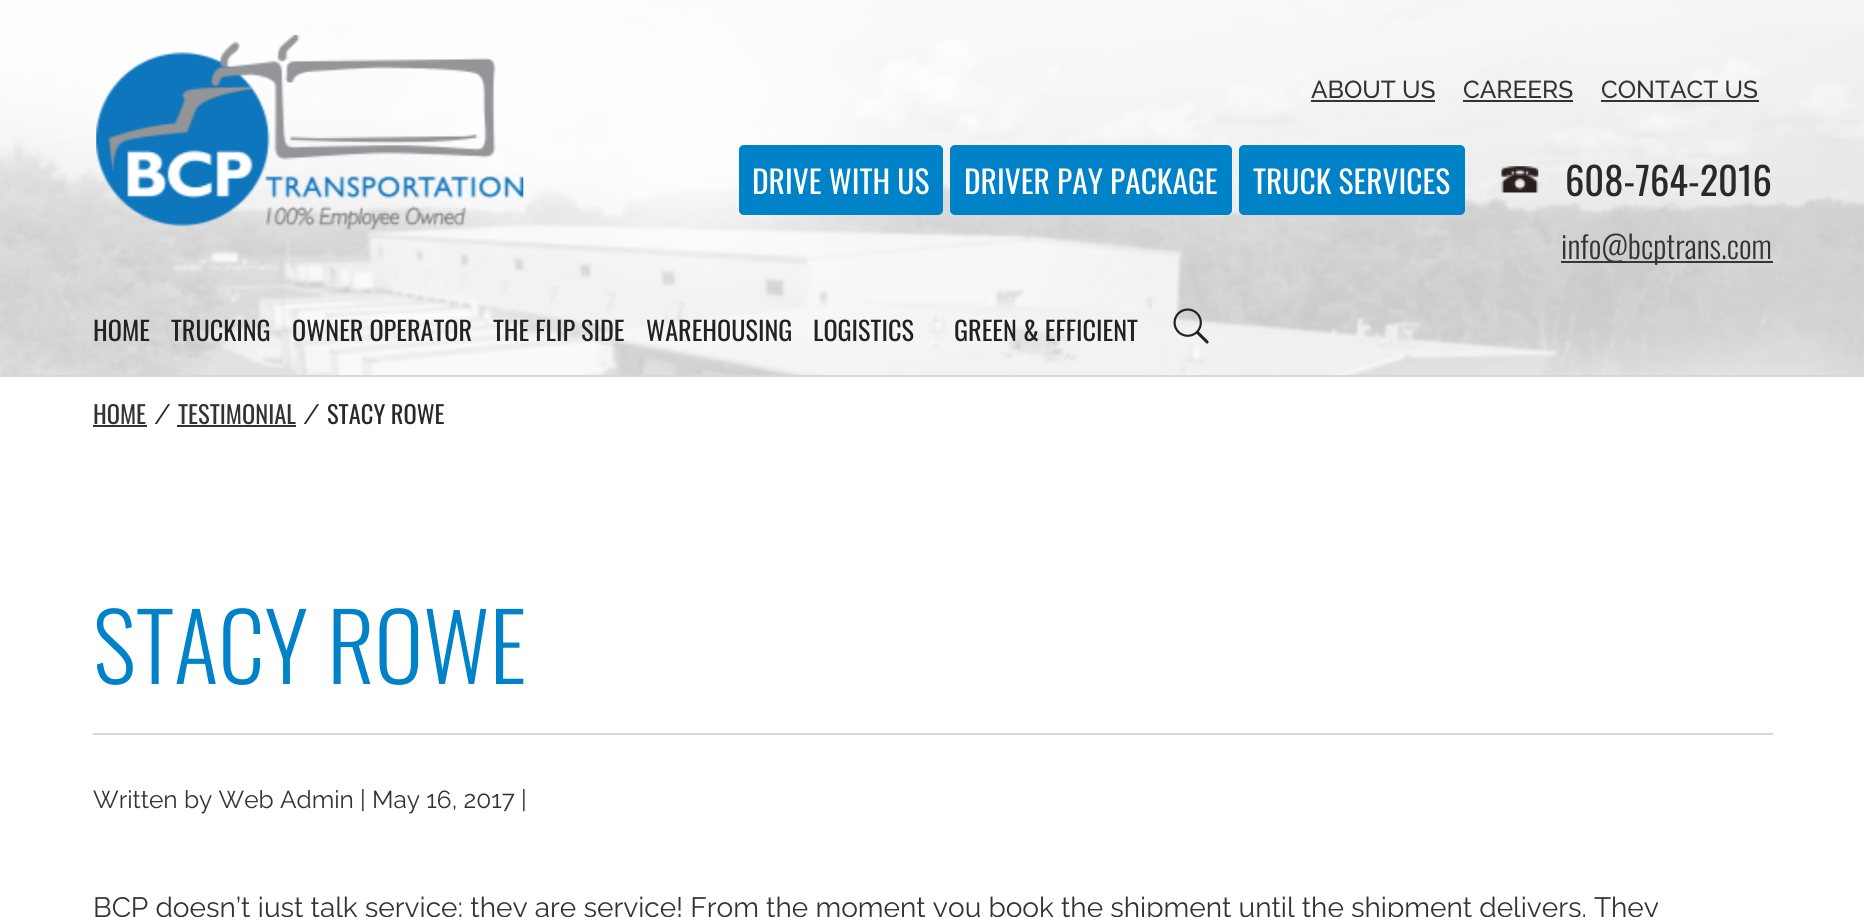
#include <cairo.h>
#include <math.h>
#include <stddef.h>


static void set_color(cairo_t *cr, unsigned color) {
    cairo_set_source_rgb(cr, (color >> 16) / 255.0, (color >> 8 & 255) / 255.0, (color & 255) / 255.0);
}

static void draw_text(cairo_t *cr, double x, double y, const char *s, const char *family, double size, int italic, int bold, unsigned color) {
    cairo_select_font_face(cr, family, italic ? CAIRO_FONT_SLANT_ITALIC : CAIRO_FONT_SLANT_NORMAL,
        bold ? CAIRO_FONT_WEIGHT_BOLD : CAIRO_FONT_WEIGHT_NORMAL);
    cairo_set_font_size(cr, size);
    set_color(cr, color);
    cairo_move_to(cr, x, y);
    cairo_show_text(cr, s);
}

static void fill_rect(cairo_t *cr, double x, double y, double w, double h, unsigned color) {
    set_color(cr, color);
    cairo_rectangle(cr, x, y, w, h);
    cairo_fill(cr);
}

static void rounded_rect(cairo_t *cr, double x, double y, double w, double h, double r) {
    cairo_new_sub_path(cr);
    cairo_arc(cr, x + w - r, y + h - r, r, 0, M_PI / 2);
    cairo_arc(cr, x + r, y + h - r, r, M_PI / 2, M_PI);
    cairo_arc(cr, x + r, y + r, r, M_PI, 1.5 * M_PI);
    cairo_arc(cr, x + w - r, y + r, r, 1.5 * M_PI, 2 * M_PI);
    cairo_close_path(cr);
}

static void draw_image(cairo_t *cr, const char *path, double x, double y, double w, double h) {
    cairo_surface_t *image = cairo_image_surface_create_from_png(path);
    cairo_save(cr);
    cairo_set_source_surface(cr, image, x, y);
    cairo_rectangle(cr, x, y, w, h);
    cairo_fill(cr);
    cairo_restore(cr);
    cairo_surface_destroy(image);
}

int main(void) {
    cairo_surface_t *surface = cairo_image_surface_create(CAIRO_FORMAT_RGB24, 1864, 917);
    cairo_t *cr = cairo_create(surface);
    cairo_font_options_t *options = cairo_font_options_create();
    cairo_font_options_set_hint_metrics(options, CAIRO_HINT_METRICS_OFF);
    cairo_font_options_set_hint_style(options, CAIRO_HINT_STYLE_NONE);
    cairo_set_font_options(cr, options);
    cairo_set_miter_limit(cr, 4);
    set_color(cr, 0xFFFFFF);
    cairo_paint(cr);
    draw_image(cr, "assets/img4.png", 0, 0, 1864, 375);
    draw_image(cr, "assets/img1.png", 96, 35, 428, 195);
    draw_text(cr, 1311, 98, "ABOUT US", "Raleway Medium", 24.5, 0, 0, 0x333333);
    fill_rect(cr, 1311, 100, 124, 2, 0x333333);
    draw_text(cr, 1463, 98, "CAREERS", "Raleway Medium", 24.5, 0, 0, 0x333333);
    fill_rect(cr, 1463, 100, 110, 2, 0x333333);
    draw_text(cr, 1601, 98, "CONTACT US", "Raleway Medium", 24.5, 0, 0, 0x333333);
    fill_rect(cr, 1601, 100, 158, 2, 0x333333);
    set_color(cr, 0x0082C8);
    rounded_rect(cr, 739, 145, 204, 70, 5);
    cairo_fill(cr);
    draw_text(cr, 752, 194, "DRIVE WITH US", "Oswald", 31.5, 0, 0, 0xFFFFFF);
    set_color(cr, 0x0082C8);
    rounded_rect(cr, 950, 145, 282, 70, 5);
    cairo_fill(cr);
    draw_text(cr, 964, 194, "DRIVER PAY PACKAGE", "Oswald", 31.5, 0, 0, 0xFFFFFF);
    set_color(cr, 0x0082C8);
    rounded_rect(cr, 1239, 145, 226, 70, 5);
    cairo_fill(cr);
    draw_text(cr, 1253, 194, "TRUCK SERVICES", "Oswald", 31.5, 0, 0, 0xFFFFFF);
    draw_image(cr, "assets/img2.png", 1501, 166, 38, 27);
    draw_text(cr, 1565, 196, "608-764-2016", "Oswald", 38.5, 0, 0, 0x292929);
    fill_rect(cr, 1561, 261, 212, 2, 0x363636);
    draw_text(cr, 1561, 259, "info@bcptrans.com", "Oswald Light", 31.5, 0, 0, 0x333333);
    draw_text(cr, 93, 341, "HOME", "Oswald", 26.25, 0, 0, 0x222222);
    draw_text(cr, 171, 341, "TRUCKING", "Oswald", 26.25, 0, 0, 0x222222);
    draw_text(cr, 292, 341, "OWNER OPERATOR", "Oswald", 26.25, 0, 0, 0x222222);
    draw_text(cr, 493, 341, "THE FLIP SIDE", "Oswald", 26.25, 0, 0, 0x222222);
    draw_text(cr, 646, 341, "WAREHOUSING", "Oswald", 26.25, 0, 0, 0x222222);
    draw_text(cr, 813, 341, "LOGISTICS", "Oswald", 26.25, 0, 0, 0x222222);
    draw_text(cr, 954, 341, "GREEN & EFFICIENT", "Oswald", 26.25, 0, 0, 0x222222);
    draw_image(cr, "assets/img3.png", 1173, 308, 36, 36);
    fill_rect(cr, 0, 375, 1864, 2, 0xD7D7D7);
    draw_text(cr, 93, 424, "HOME", "Oswald", 24.5, 0, 0, 0x333333);
    fill_rect(cr, 93, 425, 54, 2, 0x333333);
    draw_text(cr, 154, 424, "/", "Raleway", 28, 0, 0, 0x292929);
    draw_text(cr, 178, 424, "TESTIMONIAL", "Oswald", 24.5, 0, 0, 0x333333);
    fill_rect(cr, 177, 425, 119, 2, 0x333333);
    draw_text(cr, 303, 424, "/", "Raleway", 28, 0, 0, 0x292929);
    draw_text(cr, 327, 424, "STACY ROWE", "Oswald", 24.5, 0, 0, 0x292929);
    fill_rect(cr, 93, 733, 1680, 2, 0xD7D7D7);
    draw_text(cr, 93, 684, "STACY ROWE", "Oswald Light", 92.75, 0, 0, 0x0082C8);
    draw_text(cr, 93, 808, "Written by Web Admin | May 16, 2017 |", "Raleway", 24.5, 0, 0, 0x333333);
    draw_text(cr, 93, 917, "BCP doesn’t just talk service; they are service! From the moment you book the shipment until the shipment delivers. They", "Raleway", 28, 0, 0, 0x333333);
    cairo_surface_write_to_png(surface, "output.png");
    cairo_font_options_destroy(options);
    cairo_destroy(cr);
    cairo_surface_destroy(surface);
    return 0;
}
